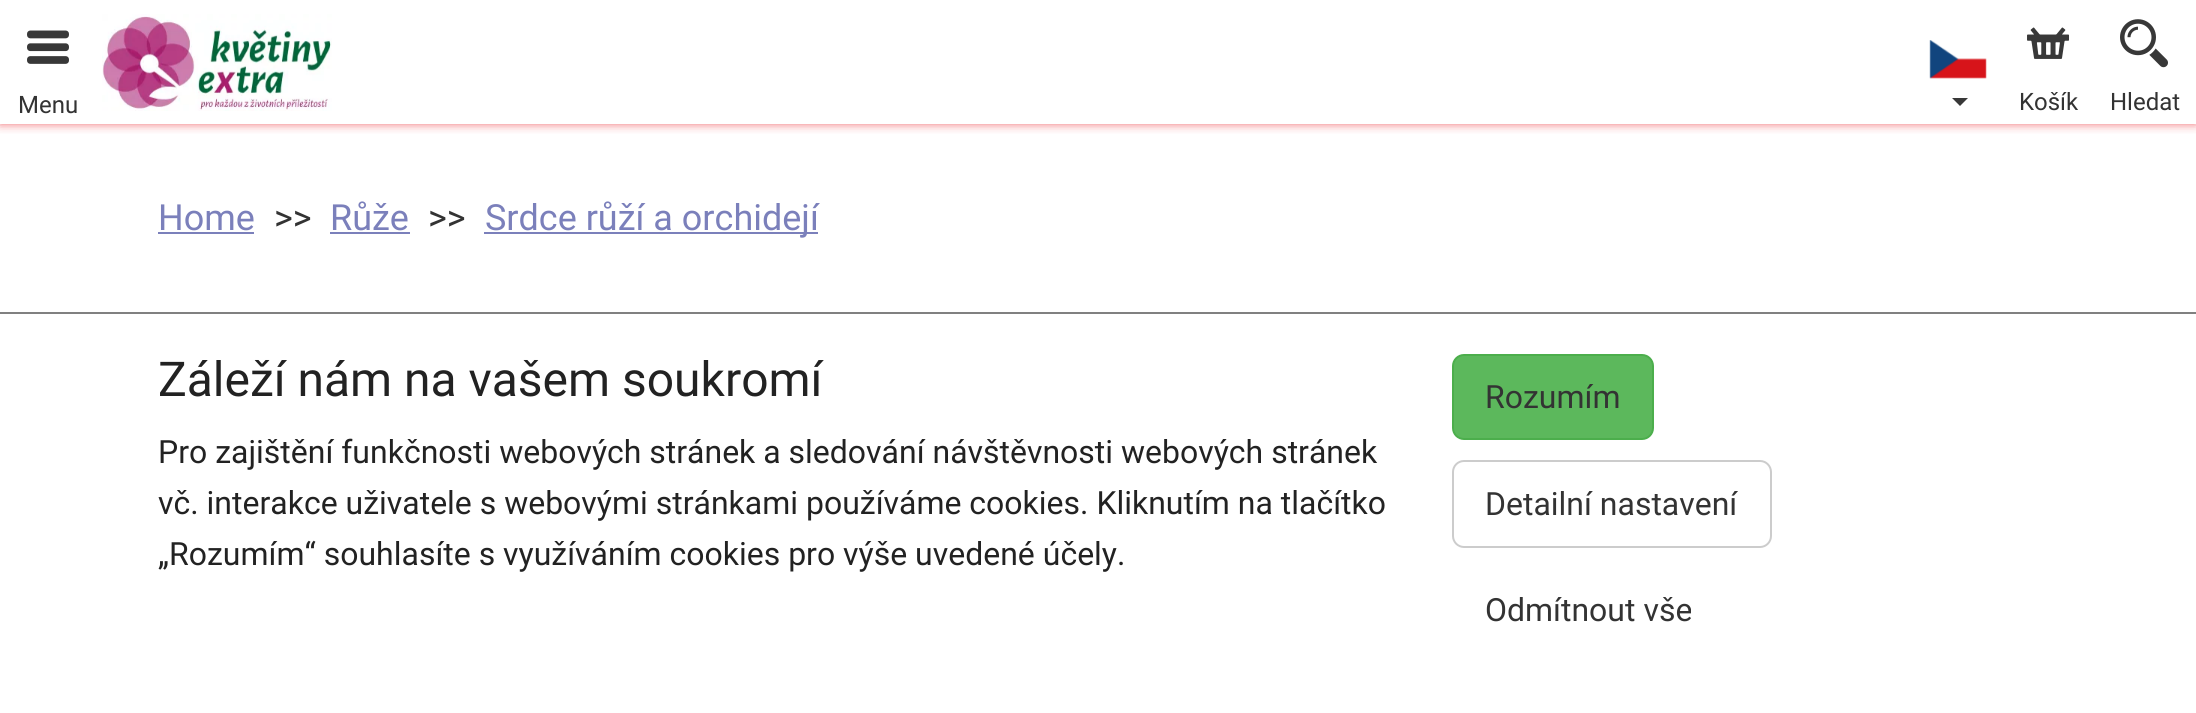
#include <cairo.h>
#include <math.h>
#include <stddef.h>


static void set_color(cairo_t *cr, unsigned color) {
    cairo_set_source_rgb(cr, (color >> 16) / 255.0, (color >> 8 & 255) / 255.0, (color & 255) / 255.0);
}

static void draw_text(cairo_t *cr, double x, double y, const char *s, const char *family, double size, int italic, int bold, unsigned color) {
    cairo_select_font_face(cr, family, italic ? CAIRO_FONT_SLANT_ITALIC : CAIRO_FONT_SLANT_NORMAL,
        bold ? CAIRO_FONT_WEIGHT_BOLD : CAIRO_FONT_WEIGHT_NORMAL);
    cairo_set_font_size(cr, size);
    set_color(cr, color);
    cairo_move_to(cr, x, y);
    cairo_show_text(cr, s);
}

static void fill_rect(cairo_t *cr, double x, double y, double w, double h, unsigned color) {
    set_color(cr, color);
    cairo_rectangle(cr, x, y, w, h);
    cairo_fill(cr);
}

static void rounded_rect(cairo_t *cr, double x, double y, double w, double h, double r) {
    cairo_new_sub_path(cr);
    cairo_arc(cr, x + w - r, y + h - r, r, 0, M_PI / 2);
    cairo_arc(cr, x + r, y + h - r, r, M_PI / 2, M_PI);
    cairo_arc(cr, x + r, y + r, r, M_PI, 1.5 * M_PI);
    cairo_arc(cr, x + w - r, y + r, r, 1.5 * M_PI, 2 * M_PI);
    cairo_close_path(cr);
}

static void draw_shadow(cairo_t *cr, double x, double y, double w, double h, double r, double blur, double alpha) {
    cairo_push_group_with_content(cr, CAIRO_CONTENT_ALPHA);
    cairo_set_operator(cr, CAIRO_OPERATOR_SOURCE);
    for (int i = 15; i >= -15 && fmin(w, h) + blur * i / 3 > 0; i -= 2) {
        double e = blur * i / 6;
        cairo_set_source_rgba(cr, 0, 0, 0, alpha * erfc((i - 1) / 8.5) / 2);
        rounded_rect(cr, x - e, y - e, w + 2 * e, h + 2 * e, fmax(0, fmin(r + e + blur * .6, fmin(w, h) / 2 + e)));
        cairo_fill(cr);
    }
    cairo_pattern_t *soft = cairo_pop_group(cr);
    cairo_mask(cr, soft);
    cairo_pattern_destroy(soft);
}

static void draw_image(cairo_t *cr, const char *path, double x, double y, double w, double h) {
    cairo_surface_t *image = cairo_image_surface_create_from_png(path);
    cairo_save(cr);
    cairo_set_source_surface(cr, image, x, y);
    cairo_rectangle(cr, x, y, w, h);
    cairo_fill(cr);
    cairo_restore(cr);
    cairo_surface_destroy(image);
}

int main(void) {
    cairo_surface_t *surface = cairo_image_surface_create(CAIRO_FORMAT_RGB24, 2196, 713);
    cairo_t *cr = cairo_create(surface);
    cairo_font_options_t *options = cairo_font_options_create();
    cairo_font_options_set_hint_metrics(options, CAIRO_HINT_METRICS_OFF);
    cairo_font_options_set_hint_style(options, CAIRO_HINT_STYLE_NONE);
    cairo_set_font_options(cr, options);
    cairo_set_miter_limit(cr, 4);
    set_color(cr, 0xFFFFFF);
    cairo_paint(cr);
    cairo_save(cr);
    cairo_rectangle(cr, 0, 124, 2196, 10);
    cairo_clip(cr);
    set_color(cr, 0xF16A6E);
    draw_shadow(cr, 0, 0, 2196, 124, 0, 5, 1);
    cairo_restore(cr);
    draw_image(cr, "assets/img1.png", 27, 30, 42, 34);
    draw_text(cr, 18, 113, "Menu", "Roboto", 24, 0, 0, 0x333333);
    draw_image(cr, "assets/img2.png", 102, 14, 230, 97);
    draw_image(cr, "assets/img3.png", 1929, 40, 58, 39);
    set_color(cr, 0x383838);
    cairo_new_path(cr);
    cairo_move_to(cr, 1952, 98);
    cairo_line_to(cr, 1968, 98);
    cairo_line_to(cr, 1960, 106);
    cairo_close_path(cr);
    cairo_fill(cr);
    draw_image(cr, "assets/img4.png", 2027, 27, 43, 32);
    draw_text(cr, 2019, 110, "Košík", "Roboto", 24, 0, 0, 0x333333);
    draw_image(cr, "assets/img5.png", 2120, 19, 48, 49);
    draw_text(cr, 2110, 110, "Hledat", "Roboto", 24, 0, 0, 0x333333);
    draw_text(cr, 158, 230, "Home", "Roboto", 36, 0, 0, 0x7B80BB);
    fill_rect(cr, 158, 232, 96, 2, 0x7B80BB);
    draw_text(cr, 274, 230, ">>", "Roboto", 36, 0, 0, 0x333333);
    draw_text(cr, 330, 230, "Růže", "Roboto", 36, 0, 0, 0x7B80BB);
    fill_rect(cr, 330, 232, 80, 2, 0x7B80BB);
    draw_text(cr, 428, 230, ">>", "Roboto", 36, 0, 0, 0x333333);
    fill_rect(cr, 484, 232, 334, 2, 0x7B80BB);
    draw_text(cr, 485, 230, "Srdce růží a orchidejí", "Roboto", 36, 0, 0, 0x7B80BB);
    fill_rect(cr, 0, 312, 2196, 2, 0x808080);
    draw_text(cr, 158, 396, "Záleží nám na vašem soukromí", "Roboto", 48, 0, 0, 0x222222);
    draw_text(cr, 158, 463, "Pro zajištění funkčnosti webových stránek a sledování návštěvnosti webových stránek", "Roboto", 32, 0, 0, 0x222222);
    draw_text(cr, 158, 514, "vč. interakce uživatele s webovými stránkami používáme cookies. Kliknutím na tlačítko", "Roboto", 32, 0, 0, 0x222222);
    draw_text(cr, 158, 565, "„Rozumím“ souhlasíte s využíváním cookies pro výše uvedené účely.", "Roboto", 32, 0, 0, 0x222222);
    set_color(cr, 0x5CB85C);
    rounded_rect(cr, 1453, 355, 200, 84, 11);
    cairo_fill_preserve(cr);
    set_color(cr, 0x4CAE4C);
    cairo_stroke(cr);
    draw_text(cr, 1485, 408, "Rozumím", "Roboto", 32, 0, 0, 0x333333);
    rounded_rect(cr, 1453, 461, 318, 86, 11);
    set_color(cr, 0xCCCCCC);
    cairo_stroke(cr);
    draw_text(cr, 1485, 515, "Detailní nastavení", "Roboto", 32, 0, 0, 0x333333);
    draw_text(cr, 1485, 621, "Odmítnout vše", "Roboto", 32, 0, 0, 0x333333);
    cairo_surface_write_to_png(surface, "output.png");
    cairo_font_options_destroy(options);
    cairo_destroy(cr);
    cairo_surface_destroy(surface);
    return 0;
}
